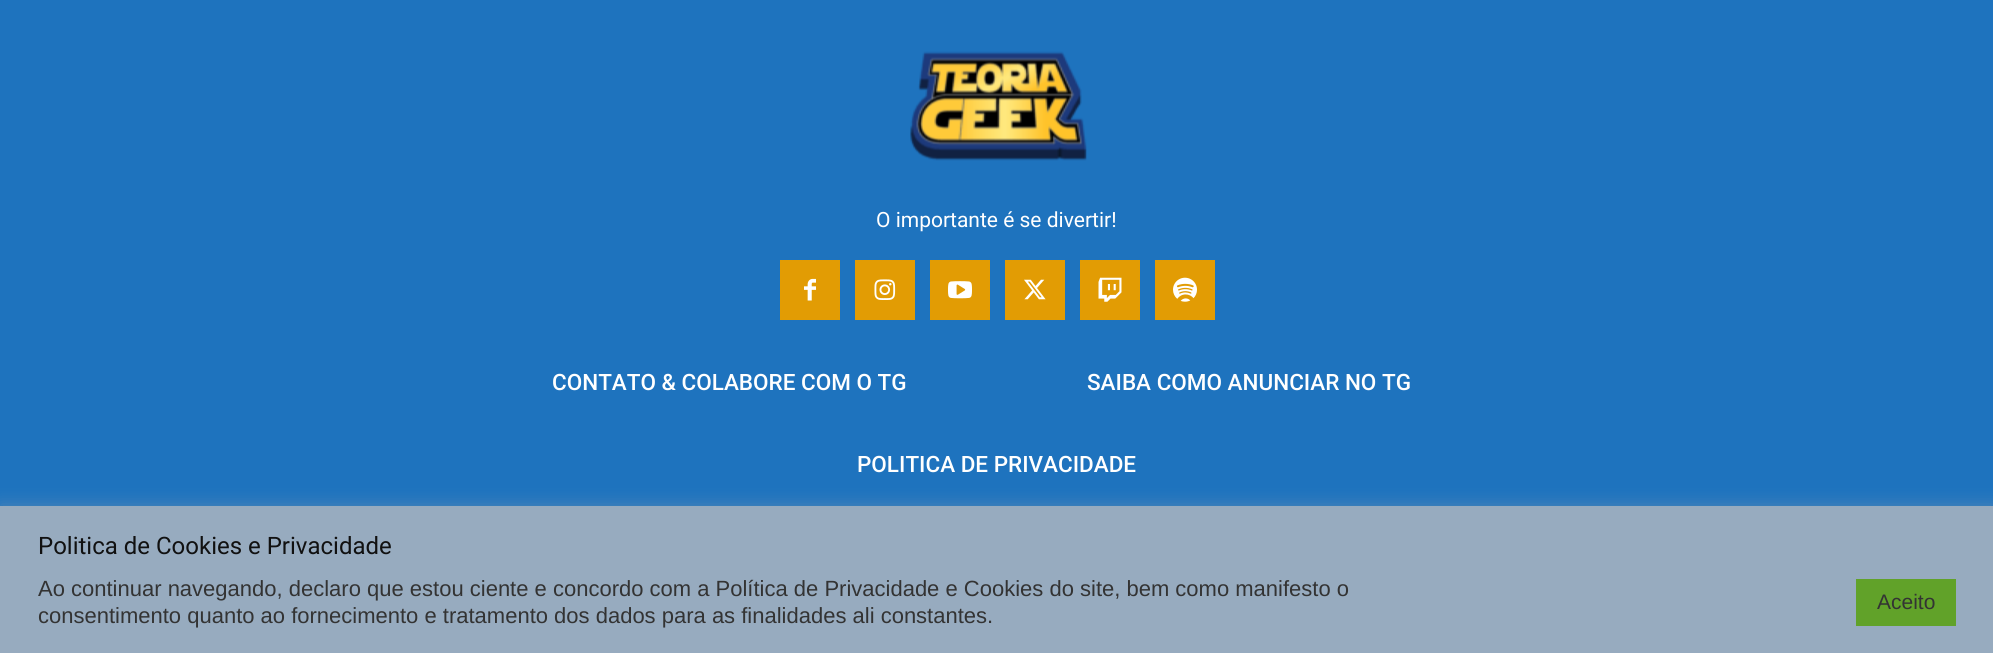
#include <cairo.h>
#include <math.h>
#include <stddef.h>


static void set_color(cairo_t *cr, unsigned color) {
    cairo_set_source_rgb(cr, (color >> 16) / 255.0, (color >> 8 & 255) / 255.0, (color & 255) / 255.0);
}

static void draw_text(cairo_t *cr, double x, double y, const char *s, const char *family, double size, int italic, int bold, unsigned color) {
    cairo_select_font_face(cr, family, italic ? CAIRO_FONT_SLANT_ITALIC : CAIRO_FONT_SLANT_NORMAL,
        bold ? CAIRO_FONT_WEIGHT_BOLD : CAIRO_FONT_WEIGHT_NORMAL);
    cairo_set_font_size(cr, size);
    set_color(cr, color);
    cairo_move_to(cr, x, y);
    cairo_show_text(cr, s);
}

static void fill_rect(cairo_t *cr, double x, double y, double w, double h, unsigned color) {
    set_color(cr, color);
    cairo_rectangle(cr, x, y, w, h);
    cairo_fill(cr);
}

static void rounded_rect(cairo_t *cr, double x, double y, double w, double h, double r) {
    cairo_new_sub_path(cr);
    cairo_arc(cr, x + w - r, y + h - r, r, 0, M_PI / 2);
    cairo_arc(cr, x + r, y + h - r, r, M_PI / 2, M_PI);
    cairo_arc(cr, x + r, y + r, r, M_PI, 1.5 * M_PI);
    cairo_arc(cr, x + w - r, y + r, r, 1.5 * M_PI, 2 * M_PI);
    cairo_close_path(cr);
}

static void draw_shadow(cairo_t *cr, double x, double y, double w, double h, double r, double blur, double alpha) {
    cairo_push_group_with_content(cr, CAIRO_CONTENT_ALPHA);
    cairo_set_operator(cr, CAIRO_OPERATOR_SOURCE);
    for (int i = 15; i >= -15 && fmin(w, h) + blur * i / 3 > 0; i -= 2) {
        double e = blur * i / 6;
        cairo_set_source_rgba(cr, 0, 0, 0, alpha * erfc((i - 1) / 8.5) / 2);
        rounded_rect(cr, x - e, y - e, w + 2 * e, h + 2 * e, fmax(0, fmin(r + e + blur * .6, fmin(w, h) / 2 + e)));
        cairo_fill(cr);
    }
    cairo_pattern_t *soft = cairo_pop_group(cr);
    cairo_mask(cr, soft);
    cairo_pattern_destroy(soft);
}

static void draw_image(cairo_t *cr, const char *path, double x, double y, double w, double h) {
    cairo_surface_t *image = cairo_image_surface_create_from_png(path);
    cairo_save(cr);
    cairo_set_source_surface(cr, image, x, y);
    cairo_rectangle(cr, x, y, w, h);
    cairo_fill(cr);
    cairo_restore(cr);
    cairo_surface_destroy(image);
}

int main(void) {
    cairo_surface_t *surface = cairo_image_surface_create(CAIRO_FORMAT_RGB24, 1993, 653);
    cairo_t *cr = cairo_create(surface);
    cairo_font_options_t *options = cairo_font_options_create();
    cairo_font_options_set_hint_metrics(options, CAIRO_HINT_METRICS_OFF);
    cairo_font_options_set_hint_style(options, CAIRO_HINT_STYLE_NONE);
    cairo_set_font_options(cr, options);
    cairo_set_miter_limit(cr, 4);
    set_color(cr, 0x1E73BE);
    cairo_paint(cr);
    draw_image(cr, "assets/img1.png", 910, 51, 177, 110);
    draw_text(cr, 876, 227, "O importante é se divertir!", "Roboto", 21, 0, 0, 0xFFFFFF);
    fill_rect(cr, 780, 260, 60, 60, 0xE29C04);
    draw_image(cr, "assets/img2.png", 804, 278, 12, 23);
    fill_rect(cr, 855, 260, 60, 60, 0xE29C04);
    draw_image(cr, "assets/img3.png", 874, 279, 22, 21);
    fill_rect(cr, 930, 260, 60, 60, 0xE29C04);
    draw_image(cr, "assets/img4.png", 948, 281, 24, 18);
    fill_rect(cr, 1005, 260, 60, 60, 0xE29C04);
    draw_image(cr, "assets/img5.png", 1024, 279, 22, 21);
    fill_rect(cr, 1080, 260, 60, 60, 0xE29C04);
    draw_image(cr, "assets/img6.png", 1098, 277, 24, 25);
    fill_rect(cr, 1155, 260, 60, 60, 0xE29C04);
    draw_image(cr, "assets/img7.png", 1173, 277, 24, 25);
    draw_text(cr, 552, 390, "CONTATO & COLABORE COM O TG", "Roboto Medium", 22.5, 0, 0, 0xFFFFFF);
    draw_text(cr, 1087, 390, "SAIBA COMO ANUNCIAR NO TG", "Roboto Medium", 22.5, 0, 0, 0xFFFFFF);
    draw_text(cr, 857, 472, "POLITICA DE PRIVACIDADE", "Roboto Medium", 22.5, 0, 0, 0xFFFFFF);
    set_color(cr, 0xACABAB);
    draw_shadow(cr, 0, 504, 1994, 149, 0, 7.5, 0.3);
    fill_rect(cr, 0, 506, 1993, 147, 0x97ABBF);
    draw_text(cr, 38, 554, "Politica de Cookies e Privacidade", "Roboto", 24, 0, 0, 0x111111);
    draw_text(cr, 38, 596, "Ao continuar navegando, declaro que estou ciente e concordo com a Política de Privacidade e Cookies do site, bem como manifesto o", "Liberation Sans", 22, 0, 0, 0x333333);
    draw_text(cr, 38, 623, "consentimento quanto ao fornecimento e tratamento dos dados para as finalidades ali constantes.", "Liberation Sans", 22, 0, 0, 0x333333);
    fill_rect(cr, 1856, 579, 100, 47, 0x61A229);
    draw_text(cr, 1877, 609, "Aceito", "Liberation Sans", 21, 0, 0, 0x333333);
    cairo_surface_write_to_png(surface, "output.png");
    cairo_font_options_destroy(options);
    cairo_destroy(cr);
    cairo_surface_destroy(surface);
    return 0;
}
